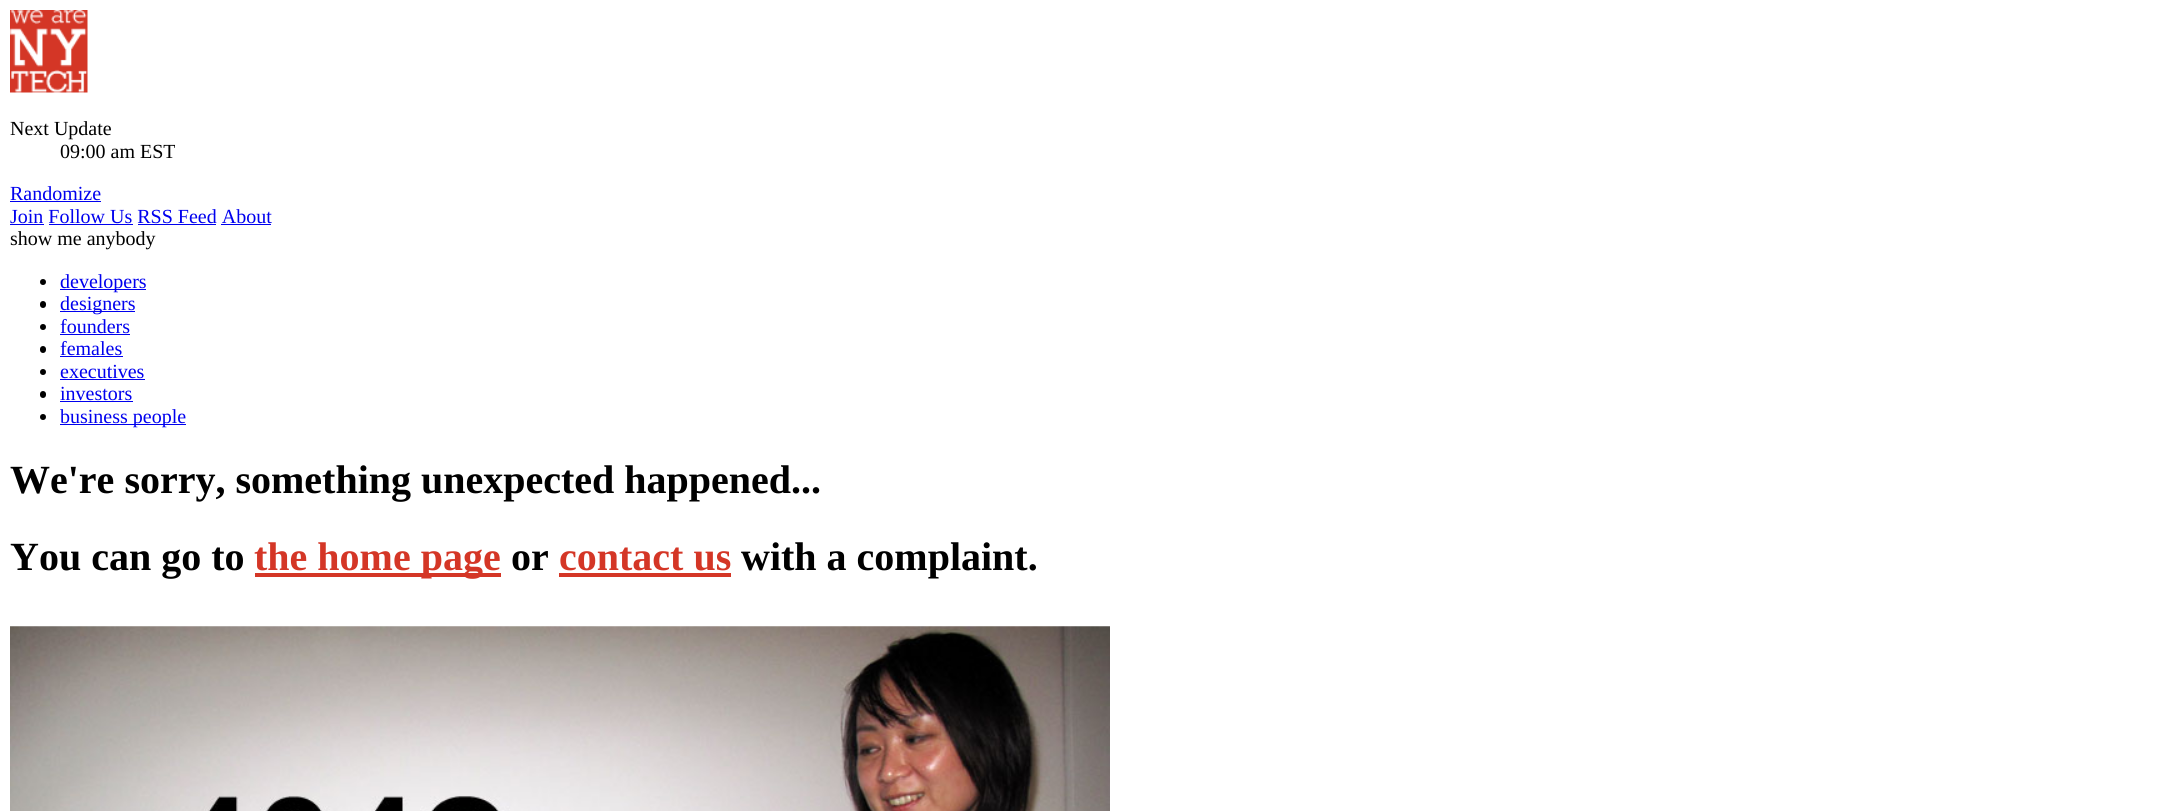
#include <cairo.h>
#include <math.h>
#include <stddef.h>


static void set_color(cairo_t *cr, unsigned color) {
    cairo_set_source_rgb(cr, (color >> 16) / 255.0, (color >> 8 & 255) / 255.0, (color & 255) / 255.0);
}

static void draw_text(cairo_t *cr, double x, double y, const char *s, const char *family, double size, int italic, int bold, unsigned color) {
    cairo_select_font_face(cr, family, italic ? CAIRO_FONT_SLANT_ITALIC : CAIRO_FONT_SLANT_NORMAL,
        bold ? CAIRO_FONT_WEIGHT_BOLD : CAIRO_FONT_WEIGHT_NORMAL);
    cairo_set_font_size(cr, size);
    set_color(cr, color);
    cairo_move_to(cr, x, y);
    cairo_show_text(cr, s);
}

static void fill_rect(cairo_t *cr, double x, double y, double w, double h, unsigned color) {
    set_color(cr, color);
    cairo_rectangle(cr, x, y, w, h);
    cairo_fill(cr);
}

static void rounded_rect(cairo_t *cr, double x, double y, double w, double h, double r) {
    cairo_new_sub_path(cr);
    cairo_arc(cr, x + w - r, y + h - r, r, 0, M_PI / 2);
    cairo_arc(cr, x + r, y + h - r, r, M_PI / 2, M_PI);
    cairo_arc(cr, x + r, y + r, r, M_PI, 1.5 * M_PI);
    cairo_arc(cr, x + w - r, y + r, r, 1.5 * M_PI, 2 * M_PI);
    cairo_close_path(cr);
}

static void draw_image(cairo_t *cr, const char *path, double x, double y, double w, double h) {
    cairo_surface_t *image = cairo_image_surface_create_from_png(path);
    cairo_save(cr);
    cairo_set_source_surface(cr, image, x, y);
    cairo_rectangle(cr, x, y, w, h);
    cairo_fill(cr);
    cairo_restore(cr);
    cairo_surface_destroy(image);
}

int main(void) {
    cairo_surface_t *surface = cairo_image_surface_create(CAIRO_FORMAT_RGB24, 2157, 811);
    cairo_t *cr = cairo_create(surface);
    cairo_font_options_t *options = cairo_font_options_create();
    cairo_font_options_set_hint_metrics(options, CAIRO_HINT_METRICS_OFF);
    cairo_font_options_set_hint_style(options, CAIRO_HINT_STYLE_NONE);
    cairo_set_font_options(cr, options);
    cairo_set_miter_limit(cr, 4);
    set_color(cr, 0xFFFFFF);
    cairo_paint(cr);
    draw_image(cr, "assets/img1.png", 10, 10, 78, 83);
    draw_text(cr, 10, 135, "Next Update", "Liberation Serif", 20, 0, 0, 0x000000);
    draw_text(cr, 60, 158, "09:00 am EST", "Liberation Serif", 20, 0, 0, 0x000000);
    draw_text(cr, 10, 200, "Randomize", "Liberation Serif", 20, 0, 0, 0x0000EE);
    fill_rect(cr, 10, 201, 91, 1, 0x0000EE);
    draw_text(cr, 10, 223, "Join Follow Us RSS Feed About", "Liberation Serif", 20, 0, 0, 0x0000EE);
    fill_rect(cr, 10, 224, 34, 1, 0x0000EE);
    fill_rect(cr, 49, 224, 84, 1, 0x0000EE);
    fill_rect(cr, 138, 224, 78, 1, 0x0000EE);
    fill_rect(cr, 221, 224, 50, 1, 0x0000EE);
    draw_text(cr, 10, 245, "show me anybody", "Liberation Serif", 20, 0, 0, 0x000000);
    cairo_new_path(cr);
    cairo_arc(cr, 43, 282, 3, 0, 2 * M_PI);
    cairo_fill(cr);
    fill_rect(cr, 60, 289, 86, 1, 0x0000EE);
    draw_text(cr, 60, 288, "developers", "Liberation Serif", 20, 0, 0, 0x0000EE);
    set_color(cr, 0x000000);
    rounded_rect(cr, 40, 301, 6, 7, 3);
    cairo_fill(cr);
    fill_rect(cr, 60, 311, 75, 1, 0x0000EE);
    draw_text(cr, 60, 310, "designers", "Liberation Serif", 20, 0, 0, 0x0000EE);
    set_color(cr, 0x000000);
    cairo_new_path(cr);
    cairo_arc(cr, 43, 327, 3, 0, 2 * M_PI);
    cairo_fill(cr);
    draw_text(cr, 60, 333, "founders", "Liberation Serif", 20, 0, 0, 0x0000EE);
    fill_rect(cr, 60, 334, 70, 1, 0x0000EE);
    set_color(cr, 0x000000);
    rounded_rect(cr, 40, 346, 6, 7, 3);
    cairo_fill(cr);
    draw_text(cr, 60, 355, "females", "Liberation Serif", 20, 0, 0, 0x0000EE);
    fill_rect(cr, 60, 356, 63, 1, 0x0000EE);
    set_color(cr, 0x000000);
    cairo_new_path(cr);
    cairo_arc(cr, 43, 372, 3, 0, 2 * M_PI);
    cairo_fill(cr);
    draw_text(cr, 60, 378, "executives", "Liberation Serif", 20, 0, 0, 0x0000EE);
    fill_rect(cr, 60, 379, 85, 1, 0x0000EE);
    set_color(cr, 0x000000);
    rounded_rect(cr, 40, 391, 6, 7, 3);
    cairo_fill(cr);
    draw_text(cr, 60, 400, "investors", "Liberation Serif", 20, 0, 0, 0x0000EE);
    fill_rect(cr, 60, 401, 73, 1, 0x0000EE);
    set_color(cr, 0x000000);
    cairo_new_path(cr);
    cairo_arc(cr, 43, 417, 3, 0, 2 * M_PI);
    cairo_fill(cr);
    fill_rect(cr, 60, 424, 126, 1, 0x0000EE);
    draw_text(cr, 60, 423, "business people", "Liberation Serif", 20, 0, 0, 0x0000EE);
    draw_text(cr, 10, 493, "We're sorry, something unexpected happened...", "Liberation Serif", 40, 0, 1, 0x000000);
    draw_text(cr, 10, 570, "You can go to", "Liberation Serif", 40, 0, 1, 0x000000);
    fill_rect(cr, 255, 573, 246, 4, 0xD43626);
    draw_text(cr, 254, 570, "the home page", "Liberation Serif", 40, 0, 1, 0xD43626);
    draw_text(cr, 511, 570, "or", "Liberation Serif", 40, 0, 1, 0x000000);
    draw_text(cr, 559, 570, "contact us", "Liberation Serif", 40, 0, 1, 0xD43626);
    fill_rect(cr, 559, 573, 172, 4, 0xD43626);
    draw_text(cr, 741, 570, "with a complaint.", "Liberation Serif", 40, 0, 1, 0x000000);
    draw_image(cr, "assets/img2.png", 10, 626, 1100, 185);
    cairo_surface_write_to_png(surface, "output.png");
    cairo_font_options_destroy(options);
    cairo_destroy(cr);
    cairo_surface_destroy(surface);
    return 0;
}
